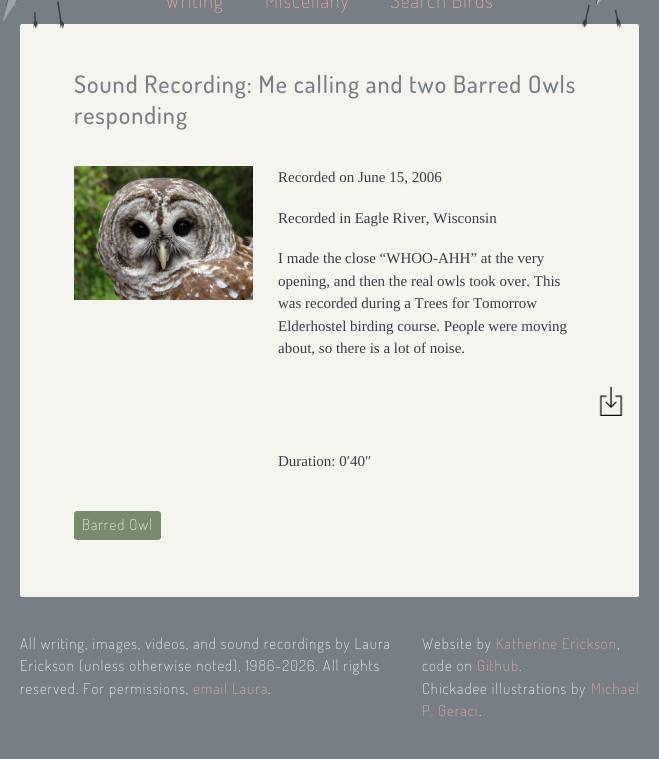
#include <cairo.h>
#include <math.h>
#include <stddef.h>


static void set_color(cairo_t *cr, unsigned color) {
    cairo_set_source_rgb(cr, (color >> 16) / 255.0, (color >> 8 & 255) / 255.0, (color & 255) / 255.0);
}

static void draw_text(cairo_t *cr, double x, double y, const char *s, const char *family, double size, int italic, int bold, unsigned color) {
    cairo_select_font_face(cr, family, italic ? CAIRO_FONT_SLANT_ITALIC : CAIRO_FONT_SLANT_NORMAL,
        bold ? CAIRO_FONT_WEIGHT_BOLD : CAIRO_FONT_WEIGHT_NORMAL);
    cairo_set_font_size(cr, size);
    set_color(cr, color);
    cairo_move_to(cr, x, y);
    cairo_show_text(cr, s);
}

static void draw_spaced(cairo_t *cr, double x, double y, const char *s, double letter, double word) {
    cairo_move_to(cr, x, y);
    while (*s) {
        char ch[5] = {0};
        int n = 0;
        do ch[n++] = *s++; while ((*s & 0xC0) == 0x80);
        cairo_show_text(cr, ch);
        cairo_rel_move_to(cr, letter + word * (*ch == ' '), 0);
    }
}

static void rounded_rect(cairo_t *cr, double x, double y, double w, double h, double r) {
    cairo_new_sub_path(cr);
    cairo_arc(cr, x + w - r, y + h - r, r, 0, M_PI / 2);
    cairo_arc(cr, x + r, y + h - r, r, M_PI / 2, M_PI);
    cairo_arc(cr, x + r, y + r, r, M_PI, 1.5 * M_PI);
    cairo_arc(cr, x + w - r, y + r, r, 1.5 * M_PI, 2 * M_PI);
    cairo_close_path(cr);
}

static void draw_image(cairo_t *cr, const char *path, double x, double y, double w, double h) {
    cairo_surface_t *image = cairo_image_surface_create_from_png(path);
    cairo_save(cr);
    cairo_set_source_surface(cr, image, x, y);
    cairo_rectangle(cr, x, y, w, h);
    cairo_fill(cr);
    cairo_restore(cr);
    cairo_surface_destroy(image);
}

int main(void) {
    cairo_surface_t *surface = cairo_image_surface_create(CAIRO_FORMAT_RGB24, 659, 759);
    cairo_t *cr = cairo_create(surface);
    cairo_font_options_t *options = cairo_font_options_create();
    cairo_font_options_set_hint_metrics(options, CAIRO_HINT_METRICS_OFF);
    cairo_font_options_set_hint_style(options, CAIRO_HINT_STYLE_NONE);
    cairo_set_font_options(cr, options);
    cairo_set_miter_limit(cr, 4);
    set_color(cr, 0x777E86);
    cairo_paint(cr);
    cairo_select_font_face(cr, "Dosis ExtraLight", CAIRO_FONT_SLANT_NORMAL, CAIRO_FONT_WEIGHT_NORMAL);
    cairo_set_font_size(cr, 20);
    set_color(cr, 0xE6A8A4);
    draw_spaced(cr, 165, 8, "Writing", 1, 0);
    draw_spaced(cr, 265, 8, "Miscellany", 1, 0);
    draw_spaced(cr, 390, 8, "Search Birds", 1, 0);
    set_color(cr, 0xF5F4EE);
    rounded_rect(cr, 20, 24, 619, 573, 2);
    cairo_fill(cr);
    draw_image(cr, "assets/img1.png", 3, 0, 62, 29);
    draw_image(cr, "assets/img2.png", 582, 0, 39, 29);
    cairo_select_font_face(cr, "Dosis Medium", CAIRO_FONT_SLANT_NORMAL, CAIRO_FONT_WEIGHT_NORMAL);
    cairo_set_font_size(cr, 24);
    set_color(cr, 0x777E86);
    draw_spaced(cr, 74, 93, "Sound Recording: Me calling and two Barred Owls", 1, 0);
    draw_spaced(cr, 74, 124, "responding", 1, 0);
    draw_image(cr, "assets/img3.png", 74, 166, 179, 134);
    draw_text(cr, 278, 182, "Recorded on June 15, 2006", "Liberation Serif", 15, 0, 0, 0x3C3A47);
    draw_text(cr, 278, 223, "Recorded in Eagle River, Wisconsin", "Liberation Serif", 15, 0, 0, 0x3C3A47);
    draw_text(cr, 278, 263, "I made the close “WHOO-AHH” at the very", "Liberation Serif", 15, 0, 0, 0x3C3A47);
    draw_text(cr, 278, 286, "opening, and then the real owls took over. This", "Liberation Serif", 15, 0, 0, 0x3C3A47);
    draw_text(cr, 278, 308, "was recorded during a Trees for Tomorrow", "Liberation Serif", 15, 0, 0, 0x3C3A47);
    draw_text(cr, 278, 331, "Elderhostel birding course. People were moving", "Liberation Serif", 15, 0, 0, 0x3C3A47);
    draw_text(cr, 278, 353, "about, so there is a lot of noise.", "Liberation Serif", 15, 0, 0, 0x3C3A47);
    draw_image(cr, "assets/img4.png", 599, 386, 24, 30);
    draw_text(cr, 278, 466, "Duration: 0′40″", "Liberation Serif", 15, 0, 0, 0x3C3A47);
    set_color(cr, 0x788C6D);
    rounded_rect(cr, 74, 511, 87, 29, 3);
    cairo_fill(cr);
    cairo_select_font_face(cr, "Dosis ExtraLight", CAIRO_FONT_SLANT_NORMAL, CAIRO_FONT_WEIGHT_NORMAL);
    set_color(cr, 0xF5F4EE);
    draw_spaced(cr, 82, 530, "Barred Owl", 1, 0);
    draw_spaced(cr, 20, 649, "All writing, images, videos, and sound recordings by Laura", 1, 0);
    draw_spaced(cr, 20, 671, "Erickson (unless otherwise noted), 1986-2026. All rights", 1, 0);
    draw_spaced(cr, 20, 694, "reserved. For permissions,", 1, 0);
    set_color(cr, 0xE6A8A4);
    draw_spaced(cr, 193, 694, "email Laura", 1, 0);
    set_color(cr, 0xF5F4EE);
    draw_spaced(cr, 268, 694, ".", 1, 0);
    draw_spaced(cr, 422, 649, "Website by", 1, 0);
    set_color(cr, 0xE6A8A4);
    draw_spaced(cr, 496, 649, "Katherine Erickson", 1, 0);
    set_color(cr, 0xF5F4EE);
    draw_spaced(cr, 617, 649, ",", 1, 0);
    draw_spaced(cr, 422, 671, "code on", 1, 0);
    set_color(cr, 0xE6A8A4);
    draw_spaced(cr, 477, 671, "Github", 1, 0);
    set_color(cr, 0xF5F4EE);
    draw_spaced(cr, 519, 671, ".", 1, 0);
    draw_spaced(cr, 422, 694, "Chickadee illustrations by", 1, 0);
    set_color(cr, 0xE6A8A4);
    draw_spaced(cr, 591, 694, "Michael", 1, 0);
    draw_spaced(cr, 422, 716, "P. Geraci", 1, 0);
    set_color(cr, 0xF5F4EE);
    draw_spaced(cr, 479, 716, ".", 1, 0);
    cairo_surface_write_to_png(surface, "output.png");
    cairo_font_options_destroy(options);
    cairo_destroy(cr);
    cairo_surface_destroy(surface);
    return 0;
}
